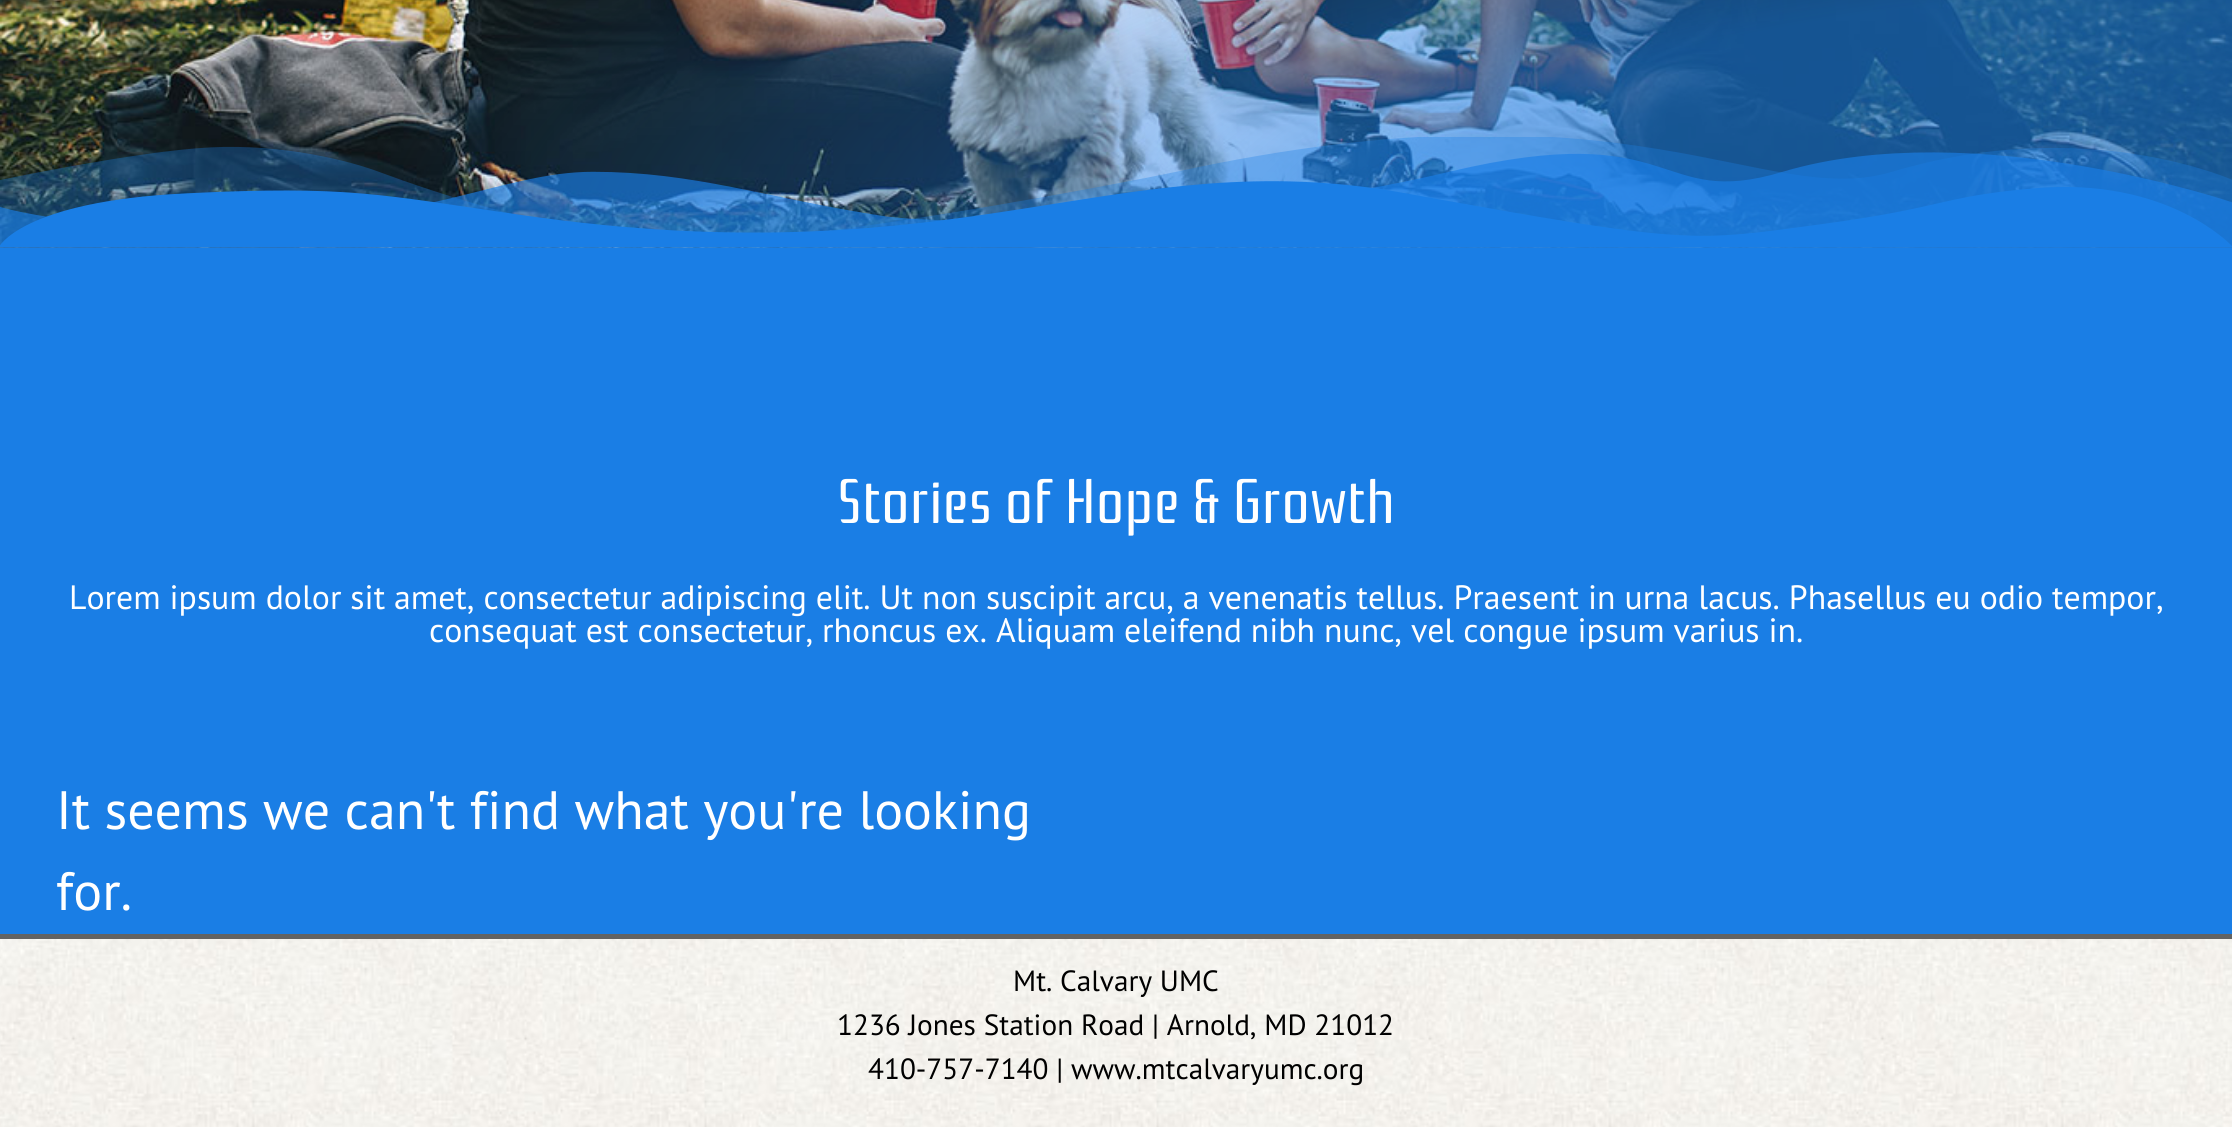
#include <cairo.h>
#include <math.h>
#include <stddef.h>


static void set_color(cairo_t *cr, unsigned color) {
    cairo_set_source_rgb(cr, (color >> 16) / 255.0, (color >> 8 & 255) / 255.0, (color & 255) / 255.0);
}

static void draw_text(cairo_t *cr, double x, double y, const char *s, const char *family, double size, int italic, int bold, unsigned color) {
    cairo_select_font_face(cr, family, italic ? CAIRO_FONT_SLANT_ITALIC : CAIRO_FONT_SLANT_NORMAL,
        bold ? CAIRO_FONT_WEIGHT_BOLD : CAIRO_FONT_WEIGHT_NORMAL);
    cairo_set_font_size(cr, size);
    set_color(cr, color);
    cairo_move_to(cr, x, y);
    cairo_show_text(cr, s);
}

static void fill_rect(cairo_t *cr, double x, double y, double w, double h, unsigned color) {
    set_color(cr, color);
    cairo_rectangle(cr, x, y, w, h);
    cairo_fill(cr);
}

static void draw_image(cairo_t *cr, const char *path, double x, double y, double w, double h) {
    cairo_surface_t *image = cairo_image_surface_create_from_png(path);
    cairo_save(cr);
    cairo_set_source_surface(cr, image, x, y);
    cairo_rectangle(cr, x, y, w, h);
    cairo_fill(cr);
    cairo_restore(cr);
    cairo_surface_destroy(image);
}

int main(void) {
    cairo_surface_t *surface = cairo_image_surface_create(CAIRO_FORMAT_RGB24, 2232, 1127);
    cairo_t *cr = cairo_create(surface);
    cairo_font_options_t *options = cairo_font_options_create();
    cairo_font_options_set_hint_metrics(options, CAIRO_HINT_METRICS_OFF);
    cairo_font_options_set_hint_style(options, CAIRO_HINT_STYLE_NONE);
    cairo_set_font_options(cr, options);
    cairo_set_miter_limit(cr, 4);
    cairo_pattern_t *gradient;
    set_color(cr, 0xFFFFFF);
    cairo_paint(cr);
    draw_image(cr, "assets/img1.png", 0, 247, 2232, 880);
    draw_image(cr, "assets/img2.png", 0, 0, 2232, 248);
    gradient = cairo_pattern_create_radial(0, 0, 0, 0, 0, 1);
    cairo_pattern_set_matrix(gradient, &(cairo_matrix_t){1.0 / 3157, 0, 0, 1.0 / 955, -1.0 * 2232 / 3157, -1.0 * 248 / 955});
    cairo_pattern_add_color_stop_rgba(gradient, 0.27, 0.102, 0.494, 0.898, 0.59);
    cairo_pattern_add_color_stop_rgba(gradient, 0.6, 0.102, 0.494, 0.898, 0);
    cairo_set_source(cr, gradient);
    cairo_pattern_destroy(gradient);
    cairo_rectangle(cr, 384, 0, 1848, 248);
    cairo_fill(cr);
    draw_image(cr, "assets/img3.png", 0, 137, 2232, 111);
    fill_rect(cr, 0, 248, 2232, 686, 0x1A7EE5);
    draw_text(cr, 837, 523, "Stories of Hope & Growth", "Rationale", 63, 0, 0, 0xFFFFFF);
    draw_text(cr, 69, 609, "Lorem ipsum dolor sit amet, consectetur adipiscing elit. Ut non suscipit arcu, a venenatis tellus. Praesent in urna lacus. Phasellus eu odio tempor,", "PT Sans", 33.75, 0, 0, 0xFFFFFF);
    draw_text(cr, 429, 642, "consequat est consectetur, rhoncus ex. Aliquam eleifend nibh nunc, vel congue ipsum varius in.", "PT Sans", 33.75, 0, 0, 0xFFFFFF);
    draw_text(cr, 56, 829, "It seems we can't find what you're looking", "PT Sans", 54, 0, 0, 0xFFFFFF);
    draw_text(cr, 56, 910, "for.", "PT Sans", 54, 0, 0, 0xFFFFFF);
    fill_rect(cr, 0, 934, 2232, 5, 0x626363);
    draw_text(cr, 1013, 991, "Mt. Calvary UMC", "PT Sans", 29.25, 0, 0, 0x000000);
    draw_text(cr, 837, 1035, "1236 Jones Station Road | Arnold, MD 21012", "PT Sans", 29.25, 0, 0, 0x000000);
    draw_text(cr, 868, 1079, "410-757-7140 | www.mtcalvaryumc.org", "PT Sans", 29.25, 0, 0, 0x000000);
    cairo_surface_write_to_png(surface, "output.png");
    cairo_font_options_destroy(options);
    cairo_destroy(cr);
    cairo_surface_destroy(surface);
    return 0;
}
